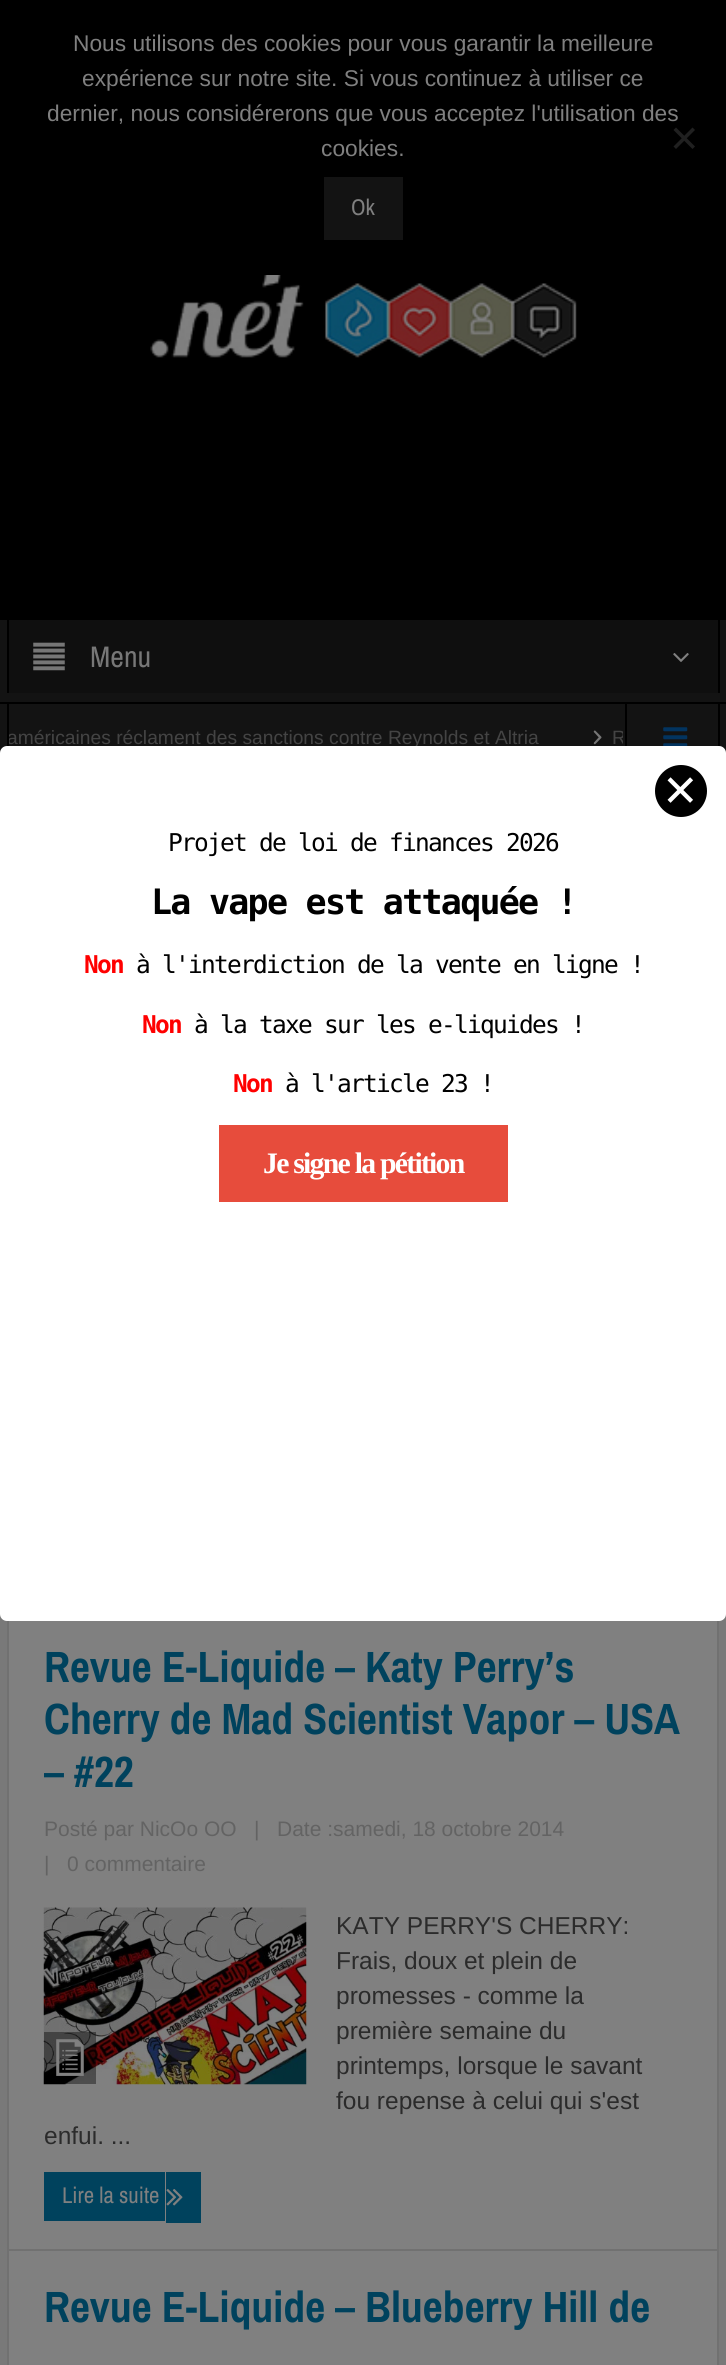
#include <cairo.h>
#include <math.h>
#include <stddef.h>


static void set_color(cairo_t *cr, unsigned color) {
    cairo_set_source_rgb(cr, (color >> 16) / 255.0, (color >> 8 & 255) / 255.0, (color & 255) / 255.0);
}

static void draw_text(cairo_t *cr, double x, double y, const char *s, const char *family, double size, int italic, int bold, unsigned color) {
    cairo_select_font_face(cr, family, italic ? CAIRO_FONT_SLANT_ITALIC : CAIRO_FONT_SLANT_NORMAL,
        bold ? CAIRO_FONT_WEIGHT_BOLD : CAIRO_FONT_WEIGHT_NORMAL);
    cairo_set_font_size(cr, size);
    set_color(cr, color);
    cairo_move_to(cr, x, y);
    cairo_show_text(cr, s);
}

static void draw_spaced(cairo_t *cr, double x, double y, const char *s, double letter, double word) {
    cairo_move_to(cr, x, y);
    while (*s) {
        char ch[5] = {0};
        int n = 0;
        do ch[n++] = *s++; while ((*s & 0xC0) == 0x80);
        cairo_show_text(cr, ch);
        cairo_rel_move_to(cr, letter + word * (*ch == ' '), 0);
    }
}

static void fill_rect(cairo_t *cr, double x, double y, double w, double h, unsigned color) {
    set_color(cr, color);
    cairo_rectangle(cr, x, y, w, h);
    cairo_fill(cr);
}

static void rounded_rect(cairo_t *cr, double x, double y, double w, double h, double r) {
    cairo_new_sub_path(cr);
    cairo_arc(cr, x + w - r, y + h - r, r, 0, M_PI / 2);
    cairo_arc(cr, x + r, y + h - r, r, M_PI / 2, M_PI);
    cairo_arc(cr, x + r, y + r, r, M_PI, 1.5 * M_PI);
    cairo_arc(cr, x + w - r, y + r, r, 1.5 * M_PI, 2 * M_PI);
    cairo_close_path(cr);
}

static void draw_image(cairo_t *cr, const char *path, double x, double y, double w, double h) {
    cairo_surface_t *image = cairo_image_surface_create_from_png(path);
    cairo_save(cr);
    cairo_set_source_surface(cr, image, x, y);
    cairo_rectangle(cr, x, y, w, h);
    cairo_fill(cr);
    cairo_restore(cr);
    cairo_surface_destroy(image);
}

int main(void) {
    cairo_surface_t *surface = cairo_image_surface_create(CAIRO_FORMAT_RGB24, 726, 2365);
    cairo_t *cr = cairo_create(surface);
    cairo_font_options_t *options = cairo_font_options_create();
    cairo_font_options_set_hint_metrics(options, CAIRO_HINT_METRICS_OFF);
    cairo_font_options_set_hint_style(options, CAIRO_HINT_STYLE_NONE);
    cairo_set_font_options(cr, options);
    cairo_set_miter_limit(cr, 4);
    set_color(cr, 0x797979);
    cairo_paint(cr);
    fill_rect(cr, 0, 0, 726, 620, 0x000000);
    draw_text(cr, 73, 51, "Nous utilisons des cookies pour vous garantir la meilleure", "Liberation Sans", 22.75, 0, 0, 0x808080);
    draw_text(cr, 82, 86, "expérience sur notre site. Si vous continuez à utiliser ce", "Liberation Sans", 22.75, 0, 0, 0x808080);
    draw_text(cr, 47, 121, "dernier, nous considérerons que vous acceptez l'utilisation des", "Liberation Sans", 22.75, 0, 0, 0x808080);
    draw_text(cr, 321, 156, "cookies.", "Liberation Sans", 22.75, 0, 0, 0x808080);
    set_color(cr, 0x202020);
    cairo_new_path(cr);
    cairo_move_to(cr, 692.5, 127.5);
    cairo_line_to(cr, 695, 130);
    cairo_line_to(cr, 676, 149);
    cairo_line_to(cr, 673.5, 146.5);
    cairo_close_path(cr);
    cairo_fill(cr);
    cairo_new_path(cr);
    cairo_move_to(cr, 673.5, 130);
    cairo_line_to(cr, 676, 127.5);
    cairo_line_to(cr, 695, 146.5);
    cairo_line_to(cr, 692.5, 149);
    cairo_close_path(cr);
    cairo_fill(cr);
    fill_rect(cr, 324, 177, 79, 63, 0x131313);
    draw_text(cr, 351, 215, "Ok", "Archivo Narrow", 22.75, 0, 0, 0x808080);
    draw_image(cr, "assets/img1.png", 150, 275, 427, 83);
    fill_rect(cr, 0, 620, 726, 82, 0x131313);
    fill_rect(cr, 0, 702, 726, 2, 0x000000);
    fill_rect(cr, 9, 620, 709, 73, 0x0F0F0F);
    fill_rect(cr, 718, 620, 2, 73, 0x000000);
    fill_rect(cr, 7, 620, 2, 73, 0x000000);
    draw_image(cr, "assets/img2.png", 33, 642, 32, 29);
    draw_text(cr, 90, 667, "Menu", "Archivo Narrow", 29.75, 0, 0, 0x777777);
    draw_image(cr, "assets/img3.png", 673, 653, 16, 9);
    fill_rect(cr, 0, 704, 726, 49, 0x131313);
    fill_rect(cr, 625, 704, 2, 42, 0x000000);
    fill_rect(cr, 7, 704, 2, 42, 0x000000);
    cairo_save(cr);
    cairo_rectangle(cr, 9, 704, 614, 68);
    cairo_clip(cr);
    draw_text(cr, 7, 744, "américaines réclament des sanctions contre Reynolds et Altria", "Liberation Sans", 19.25, 0, 0, 0x444444);
    cairo_restore(cr);
    draw_image(cr, "assets/img4.png", 593, 730, 9, 15);
    cairo_save(cr);
    cairo_rectangle(cr, 9, 704, 614, 68);
    cairo_clip(cr);
    draw_text(cr, 612, 744, "R", "Liberation Sans", 19.25, 0, 0, 0x444444);
    cairo_restore(cr);
    fill_rect(cr, 718, 704, 2, 43, 0x000000);
    draw_image(cr, "assets/img5.png", 663, 727, 25, 19);
    fill_rect(cr, 9, 1621, 708, 744, 0x808080);
    cairo_rectangle(cr, 8, 990, 710, 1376);
    set_color(cr, 0x717171);
    cairo_stroke(cr);
    fill_rect(cr, 9, 2249, 709, 2, 0x717171);
    draw_text(cr, 44, 1682, "Revue E-Liquide – Katy Perry’s", "Archivo Narrow", 43.75, 0, 1, 0x00425D);
    draw_text(cr, 44, 1734, "Cherry de Mad Scientist Vapor – USA", "Archivo Narrow", 43.75, 0, 1, 0x00425D);
    draw_text(cr, 44, 1787, "– #22", "Archivo Narrow", 43.75, 0, 1, 0x00425D);
    draw_text(cr, 44, 1836, "Posté par NicOo OO", "Liberation Sans", 21, 0, 0, 0x636363);
    draw_text(cr, 254, 1836, "|", "Liberation Sans", 21, 0, 0, 0x636363);
    draw_text(cr, 277, 1836, "Date :samedi, 18 octobre 2014", "Liberation Sans", 21, 0, 0, 0x636363);
    draw_text(cr, 44, 1871, "|", "Liberation Sans", 21, 0, 0, 0x636363);
    draw_text(cr, 67, 1871, "0 commentaire", "Liberation Sans", 21, 0, 0, 0x636363);
    draw_image(cr, "assets/img6.png", 43, 1907, 264, 178);
    cairo_set_source_rgba(cr, 0, 0, 0, 0.4);
    cairo_rectangle(cr, 44, 2032, 52, 52);
    cairo_fill(cr);
    draw_image(cr, "assets/img7.png", 56, 2039, 28, 37);
    draw_text(cr, 336, 1934, "KATY PERRY'S CHERRY:", "Liberation Sans", 24.5, 0, 0, 0x2B2B2B);
    draw_text(cr, 336, 1969, "Frais, doux et plein de", "Liberation Sans", 24.5, 0, 0, 0x2B2B2B);
    draw_text(cr, 336, 2004, "promesses - comme la", "Liberation Sans", 24.5, 0, 0, 0x2B2B2B);
    draw_text(cr, 336, 2039, "première semaine du", "Liberation Sans", 24.5, 0, 0, 0x2B2B2B);
    draw_text(cr, 336, 2074, "printemps, lorsque le savant", "Liberation Sans", 24.5, 0, 0, 0x2B2B2B);
    draw_text(cr, 336, 2109, "fou repense à celui qui s'est", "Liberation Sans", 24.5, 0, 0, 0x2B2B2B);
    draw_text(cr, 44, 2144, "enfui. ...", "Liberation Sans", 24.5, 0, 0, 0x2B2B2B);
    fill_rect(cr, 44, 2172, 121, 49, 0x00425D);
    draw_text(cr, 62, 2203, "Lire la suite", "Archivo Narrow", 22.75, 0, 0, 0x808080);
    fill_rect(cr, 166, 2172, 35, 51, 0x00425D);
    draw_image(cr, "assets/img8.png", 166, 2189, 17, 17);
    draw_text(cr, 44, 2322, "Revue E-Liquide – Blueberry Hill de", "Archivo Narrow", 43.75, 0, 1, 0x00425D);
    set_color(cr, 0xFFFFFF);
    rounded_rect(cr, 1, 747, 724, 873, 6);
    cairo_fill_preserve(cr);
    cairo_stroke(cr);
    set_color(cr, 0x000000);
    cairo_arc(cr, 681, 791, 26, 0, 2 * M_PI);
    cairo_fill(cr);
    draw_text(cr, 662, 806, "✕", "DejaVu Sans", 43.75, 0, 0, 0xFFFFFF);
    cairo_select_font_face(cr, "DejaVu Sans Mono", CAIRO_FONT_SLANT_NORMAL, CAIRO_FONT_WEIGHT_NORMAL);
    cairo_set_font_size(cr, 24.5);
    set_color(cr, 0x000000);
    draw_spaced(cr, 168, 851, "Projet de loi de finances 2026", -1.75, 0);
    cairo_select_font_face(cr, "DejaVu Sans Mono", CAIRO_FONT_SLANT_NORMAL, CAIRO_FONT_WEIGHT_BOLD);
    cairo_set_font_size(cr, 35);
    draw_spaced(cr, 151, 914, "La vape est attaquée !", -1.75, 0);
    cairo_set_font_size(cr, 24.5);
    set_color(cr, 0xFF0000);
    draw_spaced(cr, 84, 973, "Non", -1.75, 0);
    cairo_select_font_face(cr, "DejaVu Sans Mono", CAIRO_FONT_SLANT_NORMAL, CAIRO_FONT_WEIGHT_NORMAL);
    set_color(cr, 0x000000);
    draw_spaced(cr, 136, 973, "à l'interdiction de la vente en ligne !", -1.75, 0);
    cairo_select_font_face(cr, "DejaVu Sans Mono", CAIRO_FONT_SLANT_NORMAL, CAIRO_FONT_WEIGHT_BOLD);
    set_color(cr, 0xFF0000);
    draw_spaced(cr, 142, 1033, "Non", -1.75, 0);
    cairo_select_font_face(cr, "DejaVu Sans Mono", CAIRO_FONT_SLANT_NORMAL, CAIRO_FONT_WEIGHT_NORMAL);
    set_color(cr, 0x000000);
    draw_spaced(cr, 194, 1033, "à la taxe sur les e-liquides !", -1.75, 0);
    cairo_select_font_face(cr, "DejaVu Sans Mono", CAIRO_FONT_SLANT_NORMAL, CAIRO_FONT_WEIGHT_BOLD);
    set_color(cr, 0xFF0000);
    draw_spaced(cr, 233, 1092, "Non", -1.75, 0);
    cairo_select_font_face(cr, "DejaVu Sans Mono", CAIRO_FONT_SLANT_NORMAL, CAIRO_FONT_WEIGHT_NORMAL);
    set_color(cr, 0x000000);
    draw_spaced(cr, 285, 1092, "à l'article 23 !", -1.75, 0);
    fill_rect(cr, 219, 1125, 289, 77, 0xE74C3C);
    cairo_select_font_face(cr, "Liberation Serif", CAIRO_FONT_SLANT_NORMAL, CAIRO_FONT_WEIGHT_BOLD);
    cairo_set_font_size(cr, 29.75);
    set_color(cr, 0xFFFFFF);
    draw_spaced(cr, 263, 1173, "Je signe la pétition", -1.75, 0);
    cairo_surface_write_to_png(surface, "output.png");
    cairo_font_options_destroy(options);
    cairo_destroy(cr);
    cairo_surface_destroy(surface);
    return 0;
}
